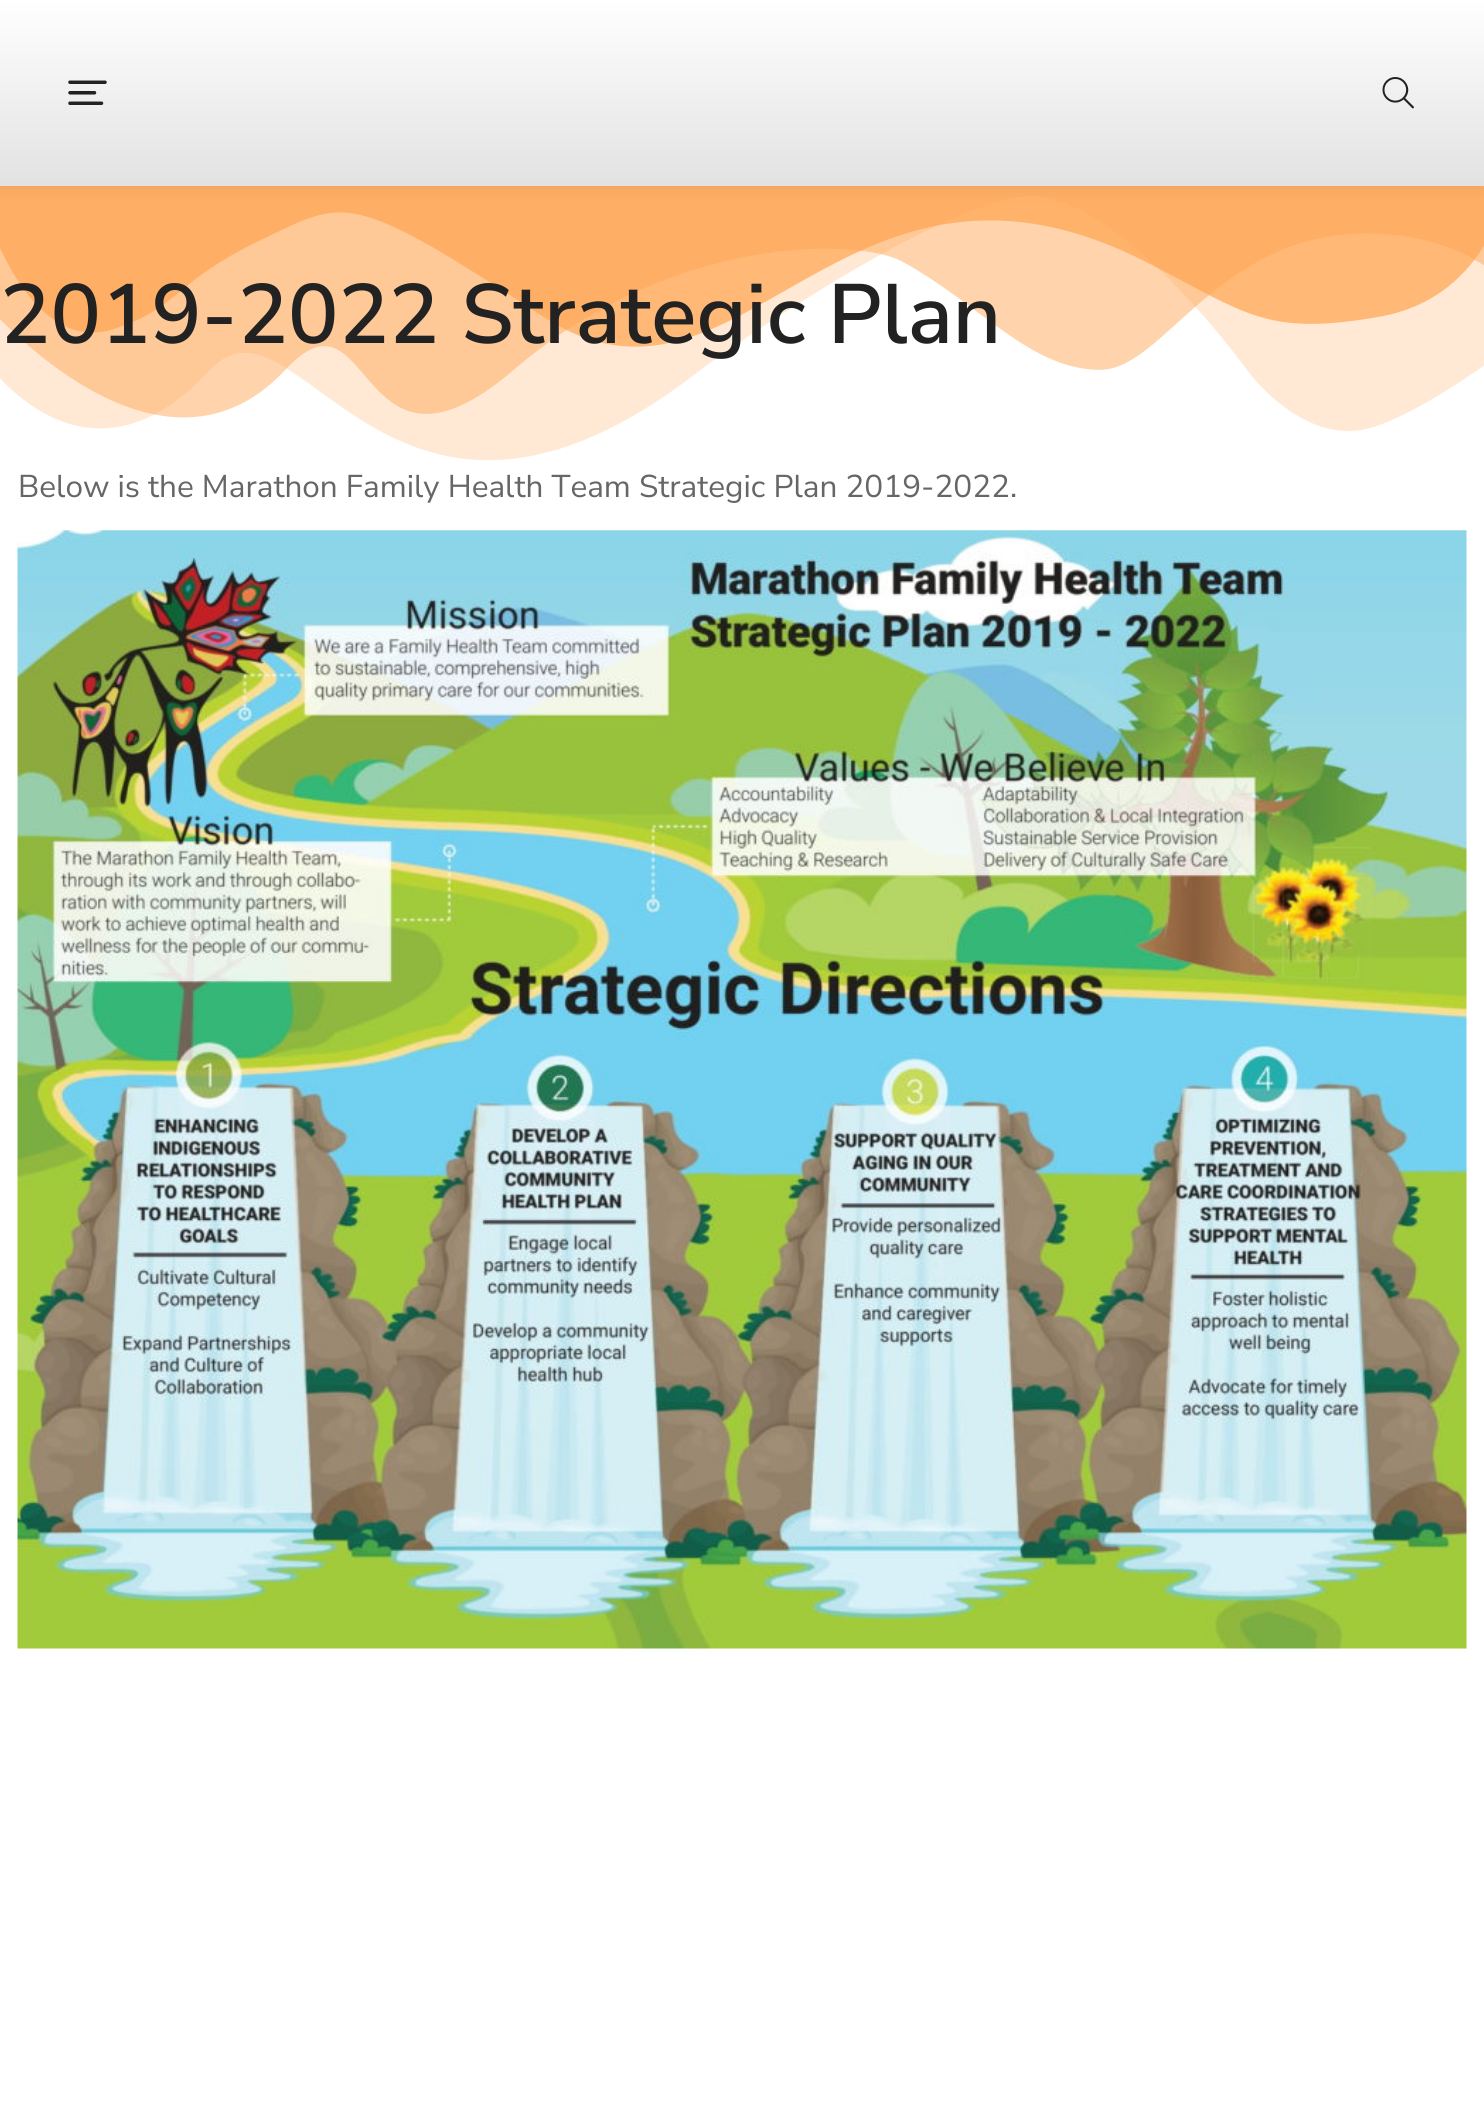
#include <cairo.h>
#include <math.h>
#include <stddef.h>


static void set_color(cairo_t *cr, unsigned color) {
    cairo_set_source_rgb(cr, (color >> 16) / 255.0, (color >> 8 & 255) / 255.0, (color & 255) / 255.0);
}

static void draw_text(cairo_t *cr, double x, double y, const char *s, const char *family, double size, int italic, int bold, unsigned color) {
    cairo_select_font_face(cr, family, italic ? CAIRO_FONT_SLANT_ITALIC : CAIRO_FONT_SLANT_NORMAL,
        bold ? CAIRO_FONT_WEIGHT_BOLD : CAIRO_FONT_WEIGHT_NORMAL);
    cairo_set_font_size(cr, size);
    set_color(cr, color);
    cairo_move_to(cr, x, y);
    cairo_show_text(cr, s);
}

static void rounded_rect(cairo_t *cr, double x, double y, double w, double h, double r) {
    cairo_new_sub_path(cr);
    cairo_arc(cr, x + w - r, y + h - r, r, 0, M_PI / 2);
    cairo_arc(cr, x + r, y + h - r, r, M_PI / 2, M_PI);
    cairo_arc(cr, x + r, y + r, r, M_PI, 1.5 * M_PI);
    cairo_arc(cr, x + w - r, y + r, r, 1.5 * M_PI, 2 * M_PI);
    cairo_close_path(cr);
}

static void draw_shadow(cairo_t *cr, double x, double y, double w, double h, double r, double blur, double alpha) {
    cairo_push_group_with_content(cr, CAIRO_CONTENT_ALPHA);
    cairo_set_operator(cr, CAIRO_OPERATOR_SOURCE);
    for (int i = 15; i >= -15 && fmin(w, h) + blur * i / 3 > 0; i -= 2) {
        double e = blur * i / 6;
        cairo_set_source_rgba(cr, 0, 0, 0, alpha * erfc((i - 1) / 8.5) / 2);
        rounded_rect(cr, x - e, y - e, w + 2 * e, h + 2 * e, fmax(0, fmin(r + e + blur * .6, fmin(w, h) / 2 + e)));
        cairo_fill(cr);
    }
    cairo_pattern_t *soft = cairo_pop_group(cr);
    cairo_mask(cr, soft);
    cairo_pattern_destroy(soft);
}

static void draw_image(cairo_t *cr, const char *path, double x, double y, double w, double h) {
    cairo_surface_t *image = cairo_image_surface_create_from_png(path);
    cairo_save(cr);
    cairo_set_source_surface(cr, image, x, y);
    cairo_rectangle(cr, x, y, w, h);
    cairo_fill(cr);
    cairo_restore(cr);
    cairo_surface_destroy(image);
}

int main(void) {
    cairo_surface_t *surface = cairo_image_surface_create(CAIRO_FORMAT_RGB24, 1484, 2114);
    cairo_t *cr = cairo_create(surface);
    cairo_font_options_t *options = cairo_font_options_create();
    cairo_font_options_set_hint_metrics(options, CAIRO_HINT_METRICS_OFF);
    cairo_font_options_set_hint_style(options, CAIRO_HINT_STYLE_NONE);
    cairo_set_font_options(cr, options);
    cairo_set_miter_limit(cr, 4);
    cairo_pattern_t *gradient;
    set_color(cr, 0xFFFFFF);
    cairo_paint(cr);
    draw_image(cr, "assets/img3.png", 0, 186, 1484, 274);
    set_color(cr, 0x000000);
    draw_shadow(cr, 0, 0, 1484, 186, 0, 9, 0.1);
    gradient = cairo_pattern_create_linear(742, 0, 742, 186);
    cairo_pattern_add_color_stop_rgba(gradient, 0, 1, 1, 1, 1);
    cairo_pattern_add_color_stop_rgba(gradient, 1, 0.886, 0.886, 0.886, 1);
    cairo_set_source(cr, gradient);
    cairo_pattern_destroy(gradient);
    cairo_rectangle(cr, 0, 0, 1484, 186);
    cairo_fill(cr);
    draw_image(cr, "assets/img1.png", 68, 80, 39, 25);
    draw_image(cr, "assets/img2.png", 1382, 77, 32, 32);
    draw_text(cr, 0, 343, "2019-2022 Strategic Plan", "Nunito Sans SemiBold", 84, 0, 0, 0x222222);
    draw_text(cr, 18, 497, "Below is the Marathon Family Health Team Strategic Plan 2019-2022.", "Nunito Sans", 31.5, 0, 0, 0x666666);
    draw_image(cr, "assets/img4.png", 17, 530, 1450, 1119);
    cairo_surface_write_to_png(surface, "output.png");
    cairo_font_options_destroy(options);
    cairo_destroy(cr);
    cairo_surface_destroy(surface);
    return 0;
}
